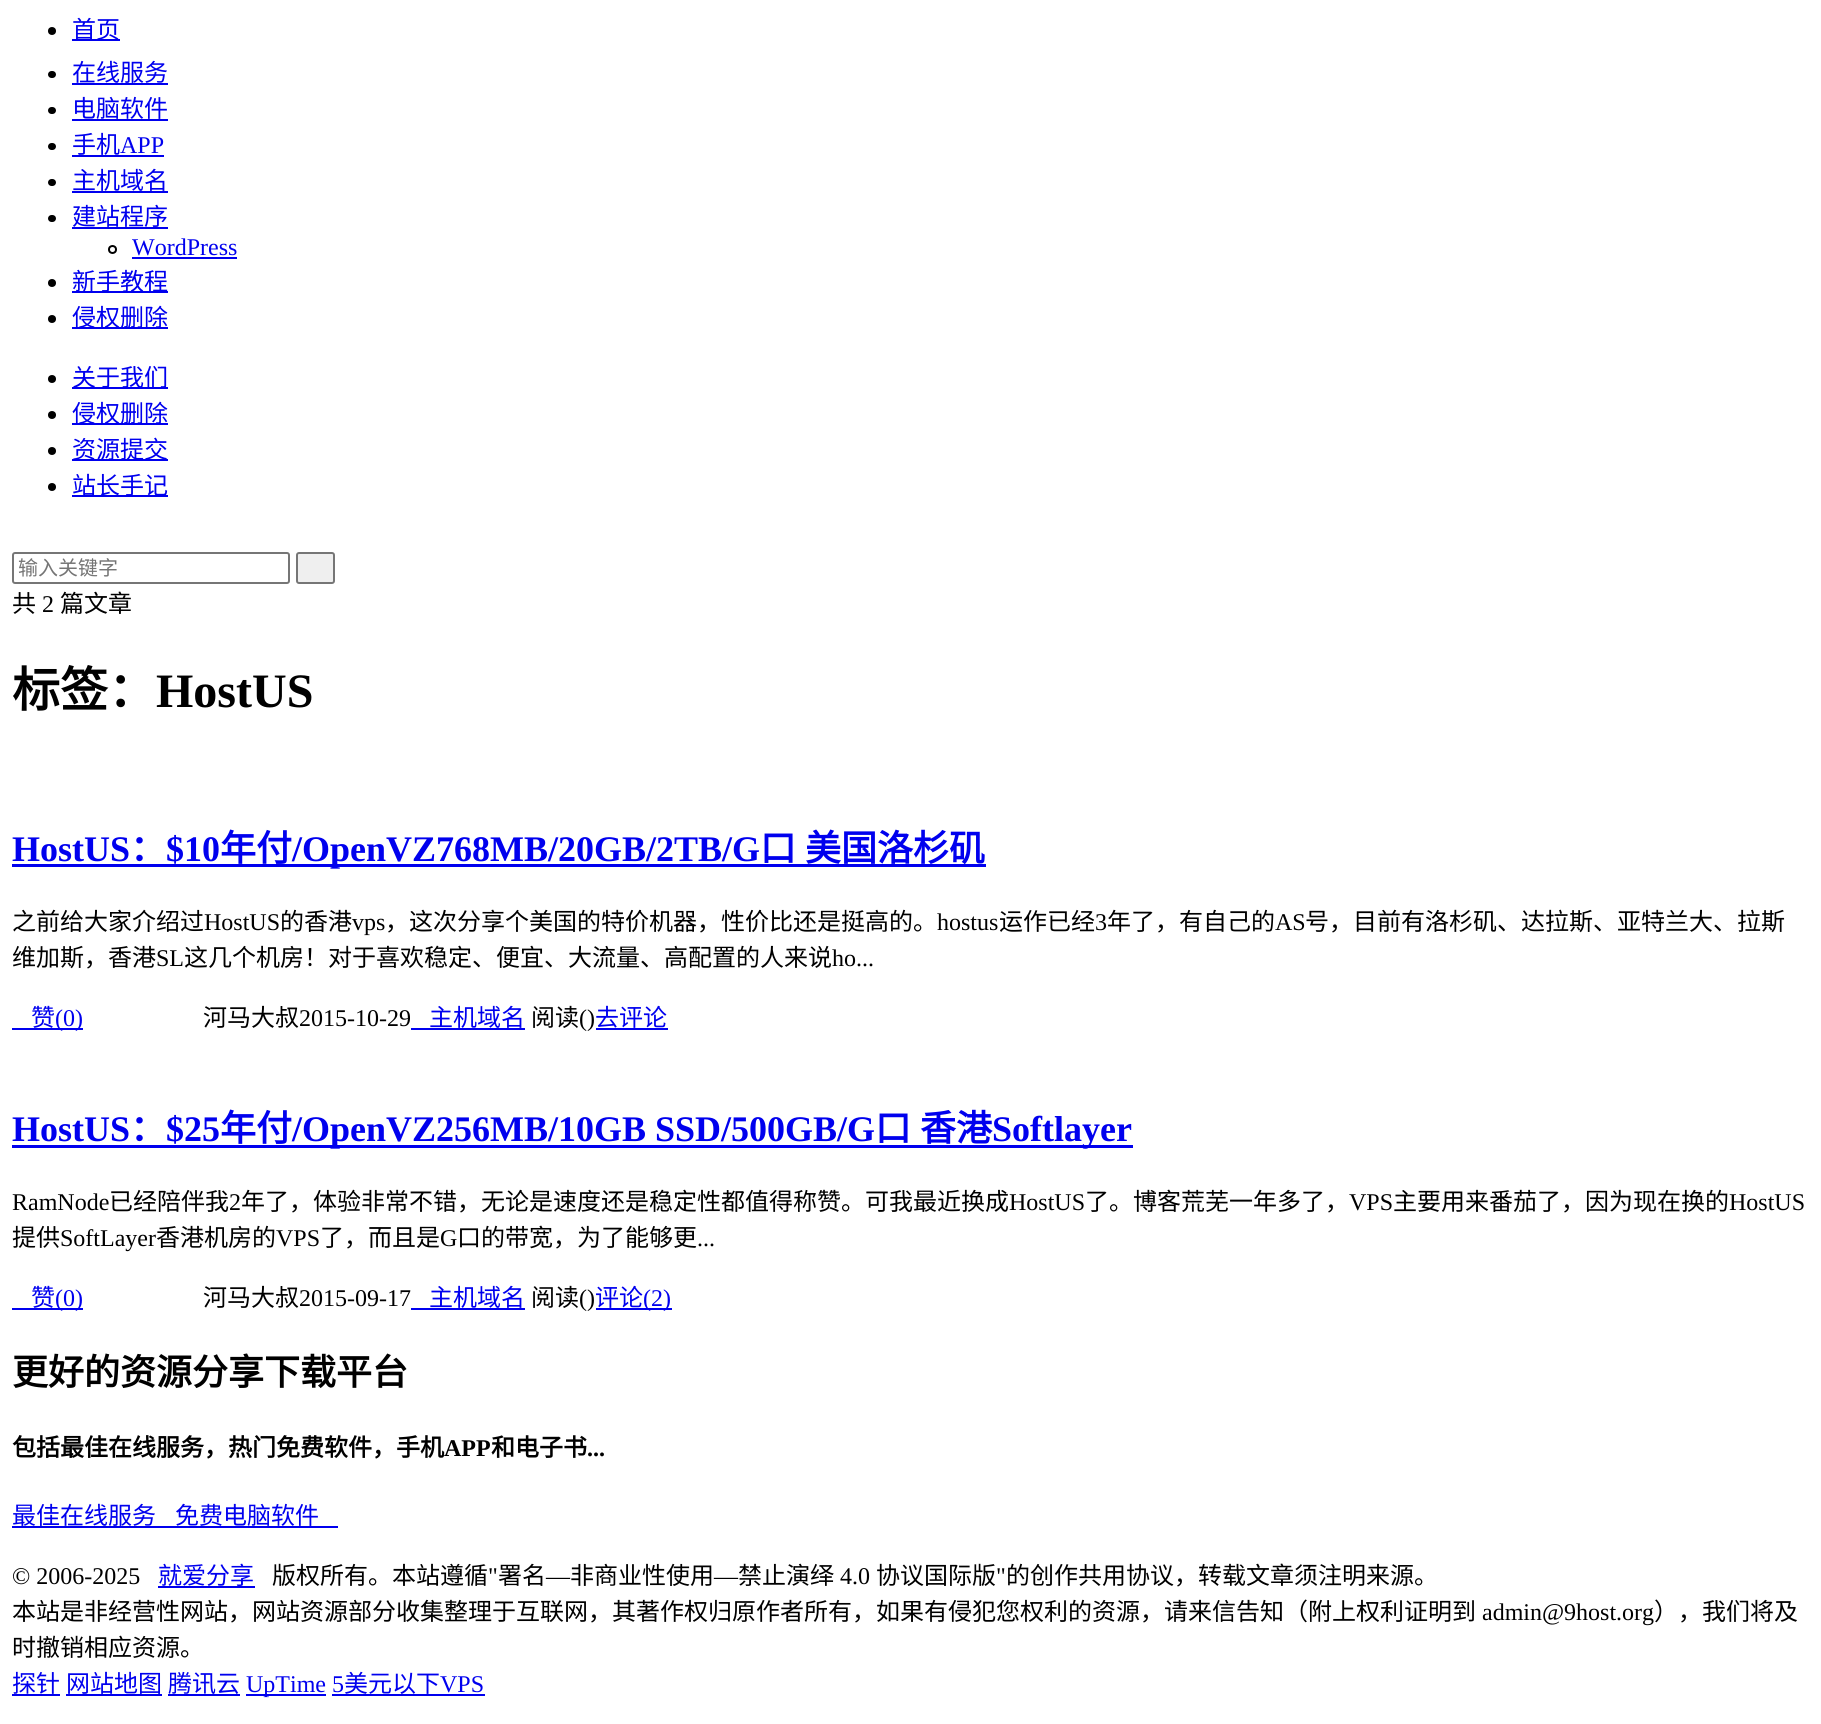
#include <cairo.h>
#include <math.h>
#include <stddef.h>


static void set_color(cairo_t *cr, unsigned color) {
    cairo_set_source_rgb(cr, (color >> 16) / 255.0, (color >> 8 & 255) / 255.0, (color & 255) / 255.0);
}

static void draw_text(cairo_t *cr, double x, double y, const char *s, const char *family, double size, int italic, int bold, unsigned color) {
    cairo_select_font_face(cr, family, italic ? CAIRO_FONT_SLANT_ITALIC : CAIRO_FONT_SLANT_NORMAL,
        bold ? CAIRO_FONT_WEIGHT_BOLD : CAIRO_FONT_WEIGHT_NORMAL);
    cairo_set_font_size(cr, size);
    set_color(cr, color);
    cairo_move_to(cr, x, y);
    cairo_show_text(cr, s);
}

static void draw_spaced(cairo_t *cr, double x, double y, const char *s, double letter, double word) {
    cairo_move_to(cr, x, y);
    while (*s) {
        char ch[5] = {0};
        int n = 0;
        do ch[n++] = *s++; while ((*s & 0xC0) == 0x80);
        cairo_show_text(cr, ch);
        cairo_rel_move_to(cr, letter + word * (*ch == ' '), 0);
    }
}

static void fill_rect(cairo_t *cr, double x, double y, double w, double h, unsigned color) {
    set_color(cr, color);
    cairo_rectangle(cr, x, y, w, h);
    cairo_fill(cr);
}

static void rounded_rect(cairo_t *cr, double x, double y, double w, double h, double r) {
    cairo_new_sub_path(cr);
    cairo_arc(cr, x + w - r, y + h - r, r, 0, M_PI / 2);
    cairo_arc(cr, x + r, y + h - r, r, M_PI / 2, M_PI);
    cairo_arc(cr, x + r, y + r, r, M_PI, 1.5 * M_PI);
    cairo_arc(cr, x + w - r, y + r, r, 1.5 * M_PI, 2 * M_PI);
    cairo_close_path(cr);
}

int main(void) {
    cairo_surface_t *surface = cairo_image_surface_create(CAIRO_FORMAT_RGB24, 1821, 1724);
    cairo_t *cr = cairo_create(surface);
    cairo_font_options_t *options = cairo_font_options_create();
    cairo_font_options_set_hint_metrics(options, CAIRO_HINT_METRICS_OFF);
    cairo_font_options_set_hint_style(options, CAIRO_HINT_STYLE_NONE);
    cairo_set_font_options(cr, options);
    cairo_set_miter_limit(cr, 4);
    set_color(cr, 0xFFFFFF);
    cairo_paint(cr);
    set_color(cr, 0x000000);
    cairo_arc(cr, 52, 31, 4, 0, 2 * M_PI);
    cairo_fill(cr);
    fill_rect(cr, 72, 39, 48, 2, 0x0000EE);
    draw_text(cr, 72, 38, "首页", "Noto Sans CJK SC", 24, 0, 0, 0x0000EE);
    set_color(cr, 0x000000);
    rounded_rect(cr, 48, 71, 8, 7, 3.5);
    cairo_fill(cr);
    draw_text(cr, 72, 81, "在线服务", "Noto Sans CJK SC", 24, 0, 0, 0x0000EE);
    fill_rect(cr, 72, 83, 96, 2, 0x0000EE);
    set_color(cr, 0x000000);
    rounded_rect(cr, 48, 107, 8, 7, 3.5);
    cairo_fill(cr);
    draw_text(cr, 72, 117, "电脑软件", "Noto Sans CJK SC", 24, 0, 0, 0x0000EE);
    fill_rect(cr, 72, 119, 96, 2, 0x0000EE);
    set_color(cr, 0x000000);
    rounded_rect(cr, 48, 143, 8, 7, 3.5);
    cairo_fill(cr);
    draw_text(cr, 72, 153, "手机", "Noto Sans CJK SC", 24, 0, 0, 0x0000EE);
    draw_text(cr, 120, 153, "APP", "Liberation Serif", 24, 0, 0, 0x0000EE);
    fill_rect(cr, 72, 155, 92, 2, 0x0000EE);
    set_color(cr, 0x000000);
    rounded_rect(cr, 48, 179, 8, 7, 3.5);
    cairo_fill(cr);
    draw_text(cr, 72, 189, "主机域名", "Noto Sans CJK SC", 24, 0, 0, 0x0000EE);
    fill_rect(cr, 72, 191, 96, 2, 0x0000EE);
    set_color(cr, 0x000000);
    rounded_rect(cr, 48, 215, 8, 7, 3.5);
    cairo_fill(cr);
    draw_text(cr, 72, 225, "建站程序", "Noto Sans CJK SC", 24, 0, 0, 0x0000EE);
    fill_rect(cr, 72, 227, 96, 2, 0x0000EE);
    cairo_new_path(cr);
    cairo_arc(cr, 112.5, 249.5, 3.5, 0, 2 * M_PI);
    set_color(cr, 0x000000);
    cairo_stroke(cr);
    draw_text(cr, 132, 255, "WordPress", "Liberation Serif", 24, 0, 0, 0x0000EE);
    fill_rect(cr, 132, 257, 105, 2, 0x0000EE);
    set_color(cr, 0x000000);
    cairo_new_path(cr);
    cairo_arc(cr, 52, 283, 4, 0, 2 * M_PI);
    cairo_fill(cr);
    fill_rect(cr, 72, 291, 96, 2, 0x0000EE);
    draw_text(cr, 72, 290, "新手教程", "Noto Sans CJK SC", 24, 0, 0, 0x0000EE);
    set_color(cr, 0x000000);
    cairo_new_path(cr);
    cairo_arc(cr, 52, 319, 4, 0, 2 * M_PI);
    cairo_fill(cr);
    fill_rect(cr, 72, 327, 96, 2, 0x0000EE);
    draw_text(cr, 72, 326, "侵权删除", "Noto Sans CJK SC", 24, 0, 0, 0x0000EE);
    set_color(cr, 0x000000);
    cairo_new_path(cr);
    cairo_arc(cr, 52, 379, 4, 0, 2 * M_PI);
    cairo_fill(cr);
    fill_rect(cr, 72, 387, 96, 2, 0x0000EE);
    draw_text(cr, 72, 386, "关于我们", "Noto Sans CJK SC", 24, 0, 0, 0x0000EE);
    set_color(cr, 0x000000);
    cairo_new_path(cr);
    cairo_arc(cr, 52, 415, 4, 0, 2 * M_PI);
    cairo_fill(cr);
    fill_rect(cr, 72, 423, 96, 2, 0x0000EE);
    draw_text(cr, 72, 422, "侵权删除", "Noto Sans CJK SC", 24, 0, 0, 0x0000EE);
    set_color(cr, 0x000000);
    cairo_new_path(cr);
    cairo_arc(cr, 52, 451, 4, 0, 2 * M_PI);
    cairo_fill(cr);
    fill_rect(cr, 72, 459, 96, 2, 0x0000EE);
    draw_text(cr, 72, 458, "资源提交", "Noto Sans CJK SC", 24, 0, 0, 0x0000EE);
    set_color(cr, 0x000000);
    cairo_new_path(cr);
    cairo_arc(cr, 52, 487, 4, 0, 2 * M_PI);
    cairo_fill(cr);
    fill_rect(cr, 72, 495, 96, 2, 0x0000EE);
    draw_text(cr, 72, 494, "站长手记", "Noto Sans CJK SC", 24, 0, 0, 0x0000EE);
    rounded_rect(cr, 13, 553, 276, 30, 2);
    set_color(cr, 0x767676);
    cairo_stroke(cr);
    draw_text(cr, 18, 575, "输入关键字", "Noto Sans CJK SC", 20, 0, 0, 0x757575);
    set_color(cr, 0xEFEFEF);
    rounded_rect(cr, 297, 553, 37, 30, 2);
    cairo_fill_preserve(cr);
    set_color(cr, 0x767676);
    cairo_stroke(cr);
    draw_text(cr, 12, 612, "共", "Noto Sans CJK SC", 24, 0, 0, 0x000000);
    draw_text(cr, 42, 612, "2", "Liberation Serif", 24, 0, 0, 0x000000);
    draw_text(cr, 60, 612, "篇文章", "Noto Sans CJK SC", 24, 0, 0, 0x000000);
    draw_text(cr, 12, 707, "标签：", "Noto Sans CJK SC", 48, 0, 1, 0x000000);
    draw_text(cr, 156, 707, "HostUS", "Liberation Serif", 48, 0, 1, 0x000000);
    draw_text(cr, 12, 861, "HostUS", "Liberation Serif", 36, 0, 1, 0x0000EE);
    draw_text(cr, 130, 861, "：", "Noto Sans CJK SC", 36, 0, 1, 0x0000EE);
    draw_text(cr, 166, 861, "$10", "Liberation Serif", 36, 0, 1, 0x0000EE);
    draw_text(cr, 220, 861, "年付", "Noto Sans CJK SC", 36, 0, 1, 0x0000EE);
    fill_rect(cr, 12, 864, 974, 3, 0x0000EE);
    draw_text(cr, 292, 861, "/OpenVZ768MB/20GB/2TB/G", "Liberation Serif", 36, 0, 1, 0x0000EE);
    cairo_select_font_face(cr, "Noto Sans CJK SC", CAIRO_FONT_SLANT_NORMAL, CAIRO_FONT_WEIGHT_BOLD);
    draw_spaced(cr, 760, 861, "口 美国洛杉矶", 0, 1);
    draw_text(cr, 12, 930, "之前给大家介绍过", "Noto Sans CJK SC", 24, 0, 0, 0x000000);
    draw_text(cr, 204, 930, "HostUS", "Liberation Serif", 24, 0, 0, 0x000000);
    draw_text(cr, 280, 930, "的香港", "Noto Sans CJK SC", 24, 0, 0, 0x000000);
    draw_text(cr, 352, 930, "vps", "Liberation Serif", 24, 0, 0, 0x000000);
    draw_text(cr, 385, 930, "，这次分享个美国的特价机器，性价比还是挺高的。", "Noto Sans CJK SC", 24, 0, 0, 0x000000);
    draw_text(cr, 937, 930, "hostus", "Liberation Serif", 24, 0, 0, 0x000000);
    draw_text(cr, 999, 930, "运作已经", "Noto Sans CJK SC", 24, 0, 0, 0x000000);
    draw_text(cr, 1095, 930, "3", "Liberation Serif", 24, 0, 0, 0x000000);
    draw_text(cr, 1107, 930, "年了，有自己的", "Noto Sans CJK SC", 24, 0, 0, 0x000000);
    draw_text(cr, 1275, 930, "AS", "Liberation Serif", 24, 0, 0, 0x000000);
    draw_text(cr, 1305, 930, "号，目前有洛杉矶、达拉斯、亚特兰大、拉斯", "Noto Sans CJK SC", 24, 0, 0, 0x000000);
    draw_text(cr, 12, 966, "维加斯，香港", "Noto Sans CJK SC", 24, 0, 0, 0x000000);
    draw_text(cr, 156, 966, "SL", "Liberation Serif", 24, 0, 0, 0x000000);
    draw_text(cr, 184, 966, "这几个机房！对于喜欢稳定、便宜、大流量、高配置的人来说", "Noto Sans CJK SC", 24, 0, 0, 0x000000);
    draw_text(cr, 832, 966, "ho...", "Liberation Serif", 24, 0, 0, 0x000000);
    draw_text(cr, 31, 1026, "赞", "Noto Sans CJK SC", 24, 0, 0, 0x0000EE);
    fill_rect(cr, 12, 1028, 71, 2, 0x0000EE);
    draw_text(cr, 55, 1026, "(0)", "Liberation Serif", 24, 0, 0, 0x0000EE);
    draw_text(cr, 203, 1026, "河马大叔", "Noto Sans CJK SC", 24, 0, 0, 0x000000);
    draw_text(cr, 299, 1026, "2015-10-29", "Liberation Serif", 24, 0, 0, 0x000000);
    draw_text(cr, 429, 1026, "主机域名", "Noto Sans CJK SC", 24, 0, 0, 0x0000EE);
    fill_rect(cr, 411, 1028, 114, 2, 0x0000EE);
    draw_text(cr, 531, 1026, "阅读", "Noto Sans CJK SC", 24, 0, 0, 0x000000);
    draw_text(cr, 579, 1026, "()", "Liberation Serif", 24, 0, 0, 0x000000);
    draw_text(cr, 595, 1026, "去评论", "Noto Sans CJK SC", 24, 0, 0, 0x0000EE);
    fill_rect(cr, 596, 1028, 72, 2, 0x0000EE);
    draw_text(cr, 12, 1141, "HostUS", "Liberation Serif", 36, 0, 1, 0x0000EE);
    draw_text(cr, 130, 1141, "：", "Noto Sans CJK SC", 36, 0, 1, 0x0000EE);
    draw_text(cr, 166, 1141, "$25", "Liberation Serif", 36, 0, 1, 0x0000EE);
    draw_text(cr, 220, 1141, "年付", "Noto Sans CJK SC", 36, 0, 1, 0x0000EE);
    fill_rect(cr, 12, 1145, 1121, 3, 0x0000EE);
    draw_text(cr, 292, 1141, "/OpenVZ256MB/10GB SSD/500GB/G", "Liberation Serif", 36, 0, 1, 0x0000EE);
    draw_text(cr, 875, 1141, "口", "Noto Sans CJK SC", 36, 0, 1, 0x0000EE);
    draw_text(cr, 920, 1141, "香港", "Noto Sans CJK SC", 36, 0, 1, 0x0000EE);
    draw_text(cr, 992, 1141, "Softlayer", "Liberation Serif", 36, 0, 1, 0x0000EE);
    draw_text(cr, 12, 1210, "RamNode", "Liberation Serif", 24, 0, 0, 0x000000);
    draw_text(cr, 109, 1210, "已经陪伴我", "Noto Sans CJK SC", 24, 0, 0, 0x000000);
    draw_text(cr, 229, 1210, "2", "Liberation Serif", 24, 0, 0, 0x000000);
    draw_text(cr, 241, 1210, "年了，体验非常不错，无论是速度还是稳定性都值得称赞。可我最近换成", "Noto Sans CJK SC", 24, 0, 0, 0x000000);
    draw_text(cr, 1009, 1210, "HostUS", "Liberation Serif", 24, 0, 0, 0x000000);
    draw_text(cr, 1085, 1210, "了。博客荒芜一年多了，", "Noto Sans CJK SC", 24, 0, 0, 0x000000);
    draw_text(cr, 1349, 1210, "VPS", "Liberation Serif", 24, 0, 0, 0x000000);
    draw_text(cr, 1393, 1210, "主要用来番茄了，因为现在换的", "Noto Sans CJK SC", 24, 0, 0, 0x000000);
    draw_text(cr, 1729, 1210, "HostUS", "Liberation Serif", 24, 0, 0, 0x000000);
    draw_text(cr, 12, 1246, "提供", "Noto Sans CJK SC", 24, 0, 0, 0x000000);
    draw_text(cr, 60, 1246, "SoftLayer", "Liberation Serif", 24, 0, 0, 0x000000);
    draw_text(cr, 156, 1246, "香港机房的", "Noto Sans CJK SC", 24, 0, 0, 0x000000);
    draw_text(cr, 276, 1246, "VPS", "Liberation Serif", 24, 0, 0, 0x000000);
    draw_text(cr, 320, 1246, "了，而且是", "Noto Sans CJK SC", 24, 0, 0, 0x000000);
    draw_text(cr, 440, 1246, "G", "Liberation Serif", 24, 0, 0, 0x000000);
    draw_text(cr, 457, 1246, "口的带宽，为了能够更", "Noto Sans CJK SC", 24, 0, 0, 0x000000);
    draw_text(cr, 697, 1246, "...", "Liberation Serif", 24, 0, 0, 0x000000);
    draw_text(cr, 31, 1306, "赞", "Noto Sans CJK SC", 24, 0, 0, 0x0000EE);
    fill_rect(cr, 12, 1308, 71, 2, 0x0000EE);
    draw_text(cr, 55, 1306, "(0)", "Liberation Serif", 24, 0, 0, 0x0000EE);
    draw_text(cr, 203, 1306, "河马大叔", "Noto Sans CJK SC", 24, 0, 0, 0x000000);
    draw_text(cr, 299, 1306, "2015-09-17", "Liberation Serif", 24, 0, 0, 0x000000);
    draw_text(cr, 429, 1306, "主机域名", "Noto Sans CJK SC", 24, 0, 0, 0x0000EE);
    fill_rect(cr, 411, 1308, 114, 2, 0x0000EE);
    draw_text(cr, 531, 1306, "阅读", "Noto Sans CJK SC", 24, 0, 0, 0x000000);
    draw_text(cr, 579, 1306, "()", "Liberation Serif", 24, 0, 0, 0x000000);
    draw_text(cr, 595, 1306, "评论", "Noto Sans CJK SC", 24, 0, 0, 0x0000EE);
    fill_rect(cr, 596, 1308, 76, 2, 0x0000EE);
    draw_text(cr, 643, 1306, "(2)", "Liberation Serif", 24, 0, 0, 0x0000EE);
    draw_text(cr, 12, 1385, "更好的资源分享下载平台", "Noto Sans CJK SC", 36, 0, 1, 0x000000);
    draw_text(cr, 12, 1456, "包括最佳在线服务，热门免费软件，手机", "Noto Sans CJK SC", 24, 0, 1, 0x000000);
    draw_text(cr, 444, 1456, "APP", "Liberation Serif", 24, 0, 1, 0x000000);
    draw_text(cr, 491, 1456, "和电子书", "Noto Sans CJK SC", 24, 0, 1, 0x000000);
    draw_text(cr, 587, 1456, "...", "Liberation Serif", 24, 0, 1, 0x000000);
    draw_text(cr, 12, 1524, "最佳在线服务", "Noto Sans CJK SC", 24, 0, 0, 0x0000EE);
    fill_rect(cr, 12, 1526, 326, 2, 0x0000EE);
    draw_text(cr, 175, 1524, "免费电脑软件", "Noto Sans CJK SC", 24, 0, 0, 0x0000EE);
    draw_text(cr, 12, 1584, "© 2006-2025", "Liberation Serif", 24, 0, 0, 0x000000);
    draw_text(cr, 158, 1584, "就爱分享", "Noto Sans CJK SC", 24, 0, 0, 0x0000EE);
    fill_rect(cr, 158, 1586, 97, 2, 0x0000EE);
    draw_text(cr, 272, 1584, "版权所有。本站遵循", "Noto Sans CJK SC", 24, 0, 0, 0x000000);
    draw_text(cr, 488, 1584, "\"", "Liberation Serif", 24, 0, 0, 0x000000);
    draw_text(cr, 498, 1584, "署名", "Noto Sans CJK SC", 24, 0, 0, 0x000000);
    draw_text(cr, 570, 1584, "非商业性使用", "Noto Sans CJK SC", 24, 0, 0, 0x000000);
    draw_text(cr, 714, 1584, "—", "Liberation Serif", 24, 0, 0, 0x000000);
    draw_text(cr, 738, 1584, "禁止演绎", "Noto Sans CJK SC", 24, 0, 0, 0x000000);
    draw_text(cr, 840, 1584, "4.0", "Liberation Serif", 24, 0, 0, 0x000000);
    draw_text(cr, 876, 1584, "协议国际版", "Noto Sans CJK SC", 24, 0, 0, 0x000000);
    draw_text(cr, 996, 1584, "\"", "Liberation Serif", 24, 0, 0, 0x000000);
    draw_text(cr, 1006, 1584, "的创作共用协议，转载文章须注明来源。", "Noto Sans CJK SC", 24, 0, 0, 0x000000);
    draw_text(cr, 546, 1584, "—", "Liberation Serif", 24, 0, 0, 0x000000);
    draw_text(cr, 12, 1620, "本站是非经营性网站，网站资源部分收集整理于互联网，其著作权归原作者所有，如果有侵犯您权利的资源，请来信告知（附上权利证明到", "Noto Sans CJK SC", 24, 0, 0, 0x000000);
    draw_text(cr, 1482, 1620, "admin@9host.org", "Liberation Serif", 24, 0, 0, 0x000000);
    draw_text(cr, 1654, 1620, "），我们将及", "Noto Sans CJK SC", 24, 0, 0, 0x000000);
    draw_text(cr, 12, 1656, "时撤销相应资源。", "Noto Sans CJK SC", 24, 0, 0, 0x000000);
    draw_text(cr, 12, 1692, "探针", "Noto Sans CJK SC", 24, 0, 0, 0x0000EE);
    fill_rect(cr, 12, 1694, 48, 2, 0x0000EE);
    draw_text(cr, 66, 1692, "网站地图", "Noto Sans CJK SC", 24, 0, 0, 0x0000EE);
    fill_rect(cr, 66, 1694, 96, 2, 0x0000EE);
    draw_text(cr, 168, 1692, "腾讯云", "Noto Sans CJK SC", 24, 0, 0, 0x0000EE);
    fill_rect(cr, 168, 1694, 72, 2, 0x0000EE);
    fill_rect(cr, 246, 1694, 80, 2, 0x0000EE);
    draw_text(cr, 246, 1692, "UpTime 5", "Liberation Serif", 24, 0, 0, 0x0000EE);
    fill_rect(cr, 332, 1694, 153, 2, 0x0000EE);
    draw_text(cr, 344, 1692, "美元以下", "Noto Sans CJK SC", 24, 0, 0, 0x0000EE);
    draw_text(cr, 440, 1692, "VPS", "Liberation Serif", 24, 0, 0, 0x0000EE);
    cairo_surface_write_to_png(surface, "output.png");
    cairo_font_options_destroy(options);
    cairo_destroy(cr);
    cairo_surface_destroy(surface);
    return 0;
}
